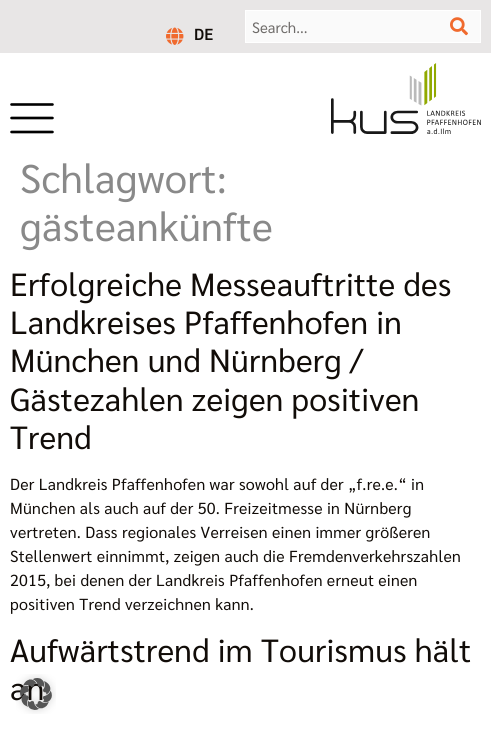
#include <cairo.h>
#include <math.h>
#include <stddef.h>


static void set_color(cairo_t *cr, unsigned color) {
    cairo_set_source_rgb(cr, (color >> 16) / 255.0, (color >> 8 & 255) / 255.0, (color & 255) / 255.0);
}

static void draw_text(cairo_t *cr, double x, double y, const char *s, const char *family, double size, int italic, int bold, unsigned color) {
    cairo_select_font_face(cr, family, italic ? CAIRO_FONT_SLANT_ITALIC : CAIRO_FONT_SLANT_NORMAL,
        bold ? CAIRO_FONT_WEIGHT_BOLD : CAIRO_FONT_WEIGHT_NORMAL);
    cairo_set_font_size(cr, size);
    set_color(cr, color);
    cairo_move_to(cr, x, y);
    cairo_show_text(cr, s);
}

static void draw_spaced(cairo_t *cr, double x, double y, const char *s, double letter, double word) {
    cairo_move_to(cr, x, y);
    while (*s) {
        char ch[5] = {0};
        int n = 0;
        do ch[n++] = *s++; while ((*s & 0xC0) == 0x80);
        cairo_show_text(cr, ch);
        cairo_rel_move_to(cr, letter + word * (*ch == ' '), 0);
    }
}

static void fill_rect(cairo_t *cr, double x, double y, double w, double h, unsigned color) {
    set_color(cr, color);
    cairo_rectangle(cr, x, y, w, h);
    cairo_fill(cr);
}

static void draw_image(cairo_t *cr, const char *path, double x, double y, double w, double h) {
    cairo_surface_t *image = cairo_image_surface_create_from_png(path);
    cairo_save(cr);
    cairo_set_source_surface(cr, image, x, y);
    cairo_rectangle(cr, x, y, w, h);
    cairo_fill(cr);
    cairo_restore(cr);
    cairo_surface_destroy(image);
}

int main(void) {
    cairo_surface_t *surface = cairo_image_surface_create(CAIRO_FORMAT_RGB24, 491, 730);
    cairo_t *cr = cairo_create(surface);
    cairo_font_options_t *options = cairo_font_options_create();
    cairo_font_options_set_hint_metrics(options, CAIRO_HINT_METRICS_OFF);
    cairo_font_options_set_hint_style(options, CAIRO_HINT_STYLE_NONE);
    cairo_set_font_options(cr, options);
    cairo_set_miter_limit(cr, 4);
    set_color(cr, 0xFFFFFF);
    cairo_paint(cr);
    fill_rect(cr, 0, 0, 491, 53, 0xE8E6E6);
    draw_image(cr, "assets/img1.png", 166, 27, 18, 18);
    draw_text(cr, 194, 40, "DE", "Sarabun SemiBold", 16, 0, 0, 0x110C08);
    set_color(cr, 0xFAFAFA);
    cairo_rectangle(cr, 245.5, 10.5, 235, 32);
    cairo_fill_preserve(cr);
    set_color(cr, 0xFFFFFF);
    cairo_set_line_width(cr, 1);
    cairo_stroke(cr);
    draw_text(cr, 252, 33, "Search...", "Sarabun", 15, 0, 0, 0x6E6B69);
    draw_image(cr, "assets/img2.png", 450, 17, 18, 19);
    cairo_new_path(cr);
    cairo_move_to(cr, 11.5, 118);
    cairo_line_to(cr, 52.5, 118);
    cairo_move_to(cr, 11.5, 104.5);
    cairo_line_to(cr, 52.5, 104.5);
    cairo_move_to(cr, 11.5, 132);
    cairo_line_to(cr, 52.5, 132);
    set_color(cr, 0x000000);
    cairo_set_line_width(cr, 2.6);
    cairo_set_line_cap(cr, CAIRO_LINE_CAP_ROUND);
    cairo_set_line_join(cr, CAIRO_LINE_JOIN_ROUND);
    cairo_stroke(cr);
    draw_image(cr, "assets/img3.png", 331, 63, 150, 71);
    cairo_set_font_size(cr, 40);
    set_color(cr, 0x898989);
    draw_spaced(cr, 20, 193, "Schlagwort:", 0.25, 0);
    draw_spaced(cr, 20, 241, "gästeankünfte", 0.25, 0);
    cairo_set_font_size(cr, 32);
    set_color(cr, 0x110C08);
    draw_spaced(cr, 10, 296, "Erfolgreiche Messeauftritte des", 0.25, 0);
    draw_spaced(cr, 10, 334, "Landkreises Pfaffenhofen in", 0.25, 0);
    draw_spaced(cr, 10, 372, "München und Nürnberg /", 0.25, 0);
    draw_spaced(cr, 10, 411, "Gästezahlen zeigen positiven", 0.25, 0);
    draw_spaced(cr, 10, 449, "Trend", 0.25, 0);
    cairo_set_font_size(cr, 16);
    draw_spaced(cr, 10, 490, "Der Landkreis Pfaffenhofen war sowohl auf der „f.re.e.“ in", 0.25, 0);
    draw_spaced(cr, 10, 514, "München als auch auf der 50. Freizeitmesse in Nürnberg", 0.25, 0);
    draw_spaced(cr, 10, 538, "vertreten. Dass regionales Verreisen einen immer größeren", 0.25, 0);
    draw_spaced(cr, 10, 562, "Stellenwert einnimmt, zeigen auch die Fremdenverkehrszahlen", 0.25, 0);
    draw_spaced(cr, 10, 586, "2015, bei denen der Landkreis Pfaffenhofen erneut einen", 0.25, 0);
    draw_spaced(cr, 10, 610, "positiven Trend verzeichnen kann.", 0.25, 0);
    cairo_set_font_size(cr, 32);
    draw_spaced(cr, 10, 662, "Aufwärtstrend im Tourismus hält", 0.25, 0);
    draw_spaced(cr, 10, 700, "an", 0.25, 0);
    draw_image(cr, "assets/img4.png", 16, 674, 40, 40);
    cairo_surface_write_to_png(surface, "output.png");
    cairo_font_options_destroy(options);
    cairo_destroy(cr);
    cairo_surface_destroy(surface);
    return 0;
}
